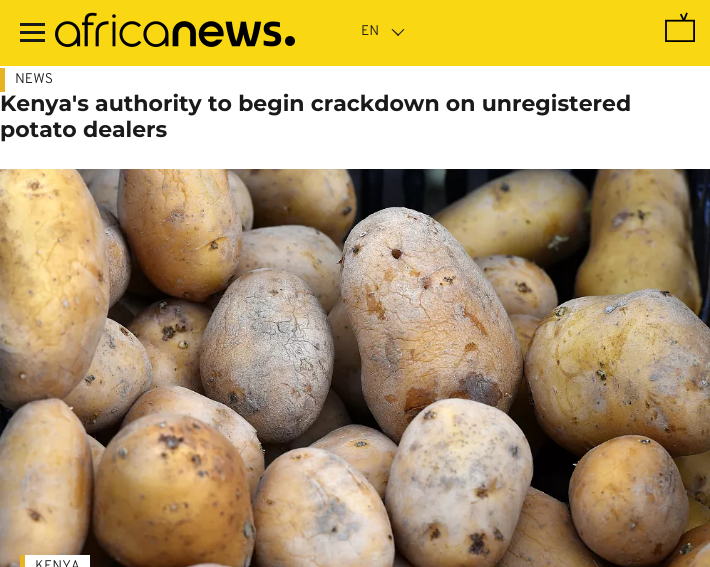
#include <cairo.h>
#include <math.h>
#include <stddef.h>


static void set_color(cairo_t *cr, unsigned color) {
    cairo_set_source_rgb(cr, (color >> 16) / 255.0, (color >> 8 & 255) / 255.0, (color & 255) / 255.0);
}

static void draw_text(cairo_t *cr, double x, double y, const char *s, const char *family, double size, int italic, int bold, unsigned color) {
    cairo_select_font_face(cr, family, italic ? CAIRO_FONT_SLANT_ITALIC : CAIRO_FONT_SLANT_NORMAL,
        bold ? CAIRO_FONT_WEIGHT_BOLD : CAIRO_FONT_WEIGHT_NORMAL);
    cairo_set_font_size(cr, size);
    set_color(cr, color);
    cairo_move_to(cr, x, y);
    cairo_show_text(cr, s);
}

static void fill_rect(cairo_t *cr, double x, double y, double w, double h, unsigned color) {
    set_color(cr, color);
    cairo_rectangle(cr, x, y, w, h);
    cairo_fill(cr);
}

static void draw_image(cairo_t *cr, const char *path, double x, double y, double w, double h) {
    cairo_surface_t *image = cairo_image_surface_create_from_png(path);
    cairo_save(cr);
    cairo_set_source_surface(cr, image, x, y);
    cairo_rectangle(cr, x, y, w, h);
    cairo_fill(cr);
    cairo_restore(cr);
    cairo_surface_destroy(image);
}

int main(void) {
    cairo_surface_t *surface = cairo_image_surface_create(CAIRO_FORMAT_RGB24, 710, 567);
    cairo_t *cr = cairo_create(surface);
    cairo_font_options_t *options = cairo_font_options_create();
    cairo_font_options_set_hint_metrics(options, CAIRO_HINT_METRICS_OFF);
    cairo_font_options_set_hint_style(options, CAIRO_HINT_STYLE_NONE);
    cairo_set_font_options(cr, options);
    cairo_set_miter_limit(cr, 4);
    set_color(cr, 0xFFFFFF);
    cairo_paint(cr);
    fill_rect(cr, 0, 0, 710, 66, 0xF9D713);
    fill_rect(cr, 20, 31, 25, 3, 0x1A1A1A);
    fill_rect(cr, 20, 23, 25, 3, 0x1A1A1A);
    fill_rect(cr, 20, 39, 25, 3, 0x1A1A1A);
    draw_image(cr, "assets/img1.png", 55, 12, 240, 35);
    draw_text(cr, 361, 35, "EN", "Overpass Light", 14, 0, 0, 0x1A1A1A);
    cairo_new_path(cr);
    cairo_move_to(cr, 397.5, 35);
    cairo_line_to(cr, 403.5, 29);
    cairo_line_to(cr, 404.5, 29.5);
    cairo_line_to(cr, 398, 36);
    cairo_close_path(cr);
    cairo_fill(cr);
    cairo_new_path(cr);
    cairo_move_to(cr, 391.5, 29.5);
    cairo_line_to(cr, 392.5, 29);
    cairo_line_to(cr, 399, 35);
    cairo_line_to(cr, 398, 36);
    cairo_close_path(cr);
    cairo_fill(cr);
    draw_image(cr, "assets/img2.png", 665, 12, 30, 30);
    fill_rect(cr, 0, 68, 5, 24, 0xE7B322);
    draw_text(cr, 15, 83, "NEWS", "Overpass Light", 14, 0, 0, 0x1A1A1A);
    draw_text(cr, 0, 111, "Kenya's authority to begin crackdown on unregistered", "Montserrat Thin", 22, 0, 0, 0x1A1A1A);
    draw_text(cr, 0, 137, "potato dealers", "Montserrat Thin", 22, 0, 0, 0x1A1A1A);
    draw_image(cr, "assets/img3.png", 0, 169, 710, 398);
    fill_rect(cr, 25, 555, 65, 12, 0xFFFFFF);
    fill_rect(cr, 20, 555, 5, 12, 0xE7B322);
    draw_text(cr, 35, 570, "KENYA", "Overpass Light", 14, 0, 0, 0x1A1A1A);
    cairo_surface_write_to_png(surface, "output.png");
    cairo_font_options_destroy(options);
    cairo_destroy(cr);
    cairo_surface_destroy(surface);
    return 0;
}
